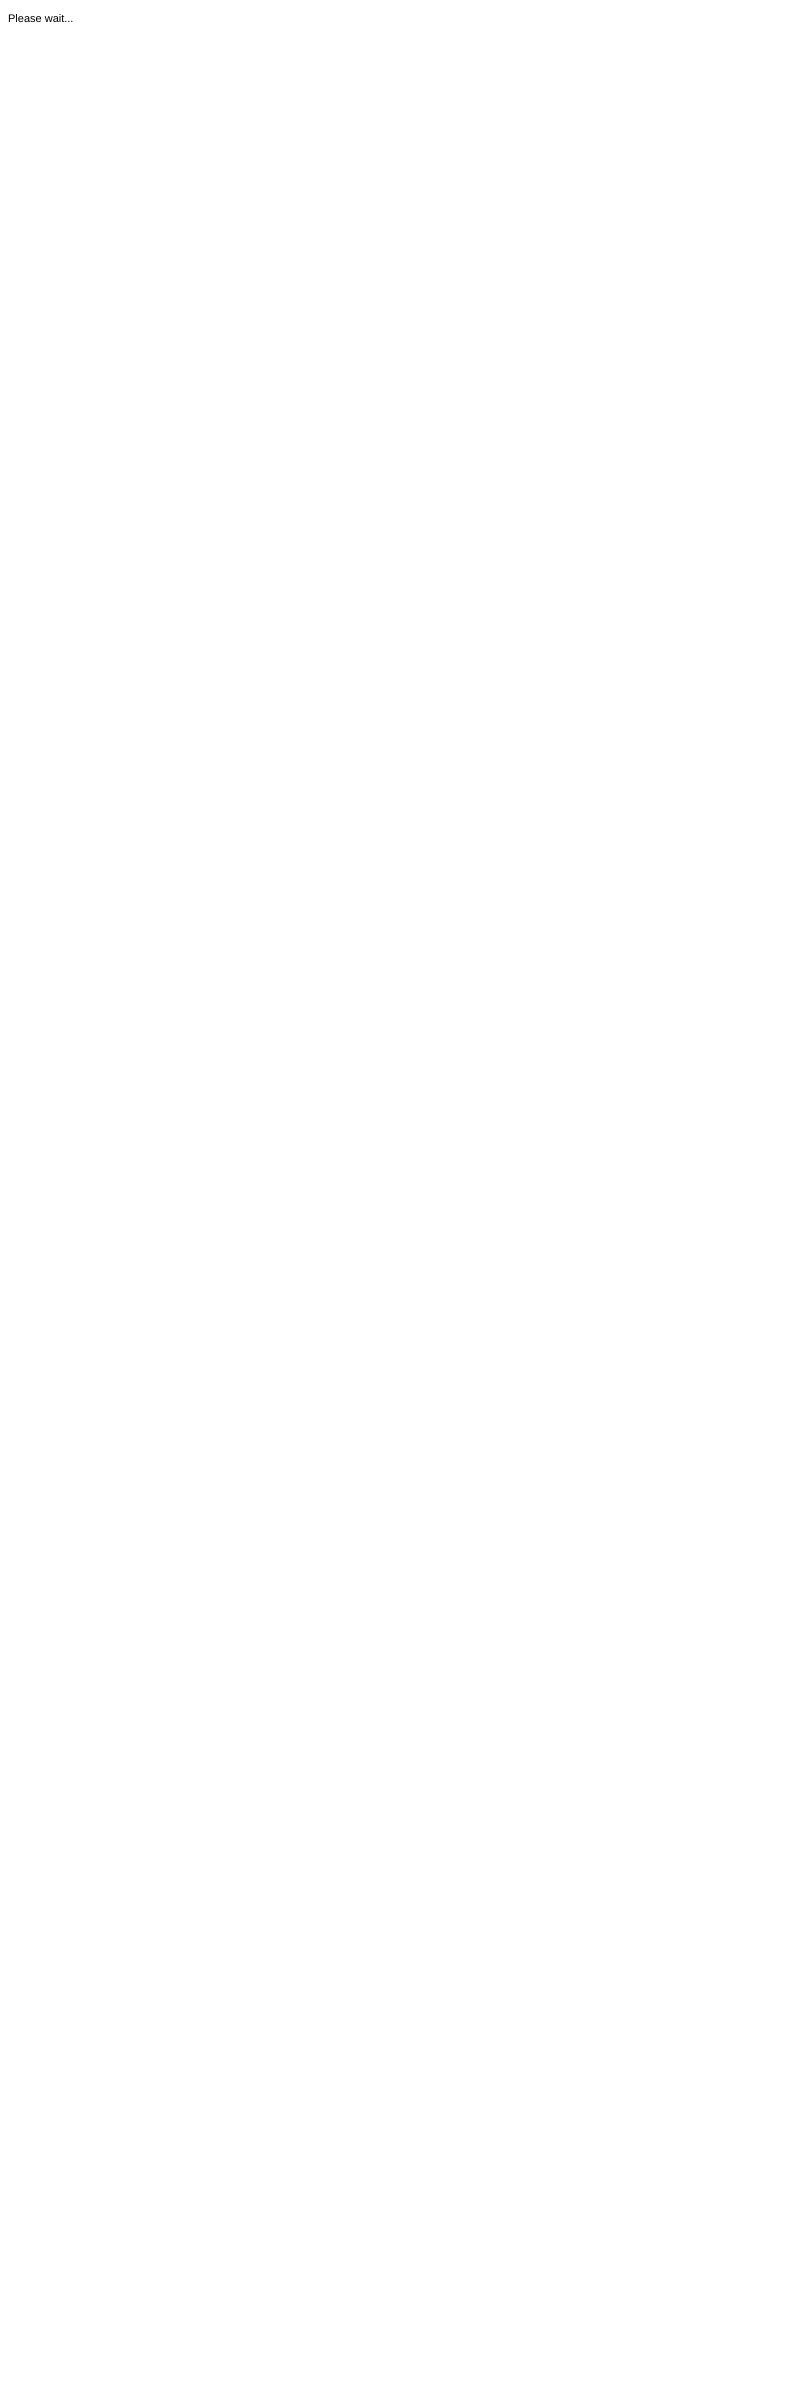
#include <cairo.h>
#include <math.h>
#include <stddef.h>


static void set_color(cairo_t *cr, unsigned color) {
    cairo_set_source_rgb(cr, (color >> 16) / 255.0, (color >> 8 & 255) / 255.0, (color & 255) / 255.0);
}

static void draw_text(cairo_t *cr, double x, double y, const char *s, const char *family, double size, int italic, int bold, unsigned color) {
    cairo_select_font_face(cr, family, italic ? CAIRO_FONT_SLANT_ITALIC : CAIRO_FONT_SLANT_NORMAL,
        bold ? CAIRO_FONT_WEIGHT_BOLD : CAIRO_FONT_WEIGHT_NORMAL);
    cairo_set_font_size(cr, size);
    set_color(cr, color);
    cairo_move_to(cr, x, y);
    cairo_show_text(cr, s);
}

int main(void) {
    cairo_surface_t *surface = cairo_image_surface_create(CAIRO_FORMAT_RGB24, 803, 2406);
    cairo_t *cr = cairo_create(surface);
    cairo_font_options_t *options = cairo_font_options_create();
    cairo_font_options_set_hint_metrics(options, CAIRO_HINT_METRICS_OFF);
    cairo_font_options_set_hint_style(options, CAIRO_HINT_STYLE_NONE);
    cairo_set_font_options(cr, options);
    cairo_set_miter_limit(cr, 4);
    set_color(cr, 0xFFFFFF);
    cairo_paint(cr);
    draw_text(cr, 8, 22, "Please wait...", "Liberation Sans", 11, 0, 0, 0x000000);
    cairo_surface_write_to_png(surface, "output.png");
    cairo_font_options_destroy(options);
    cairo_destroy(cr);
    cairo_surface_destroy(surface);
    return 0;
}
